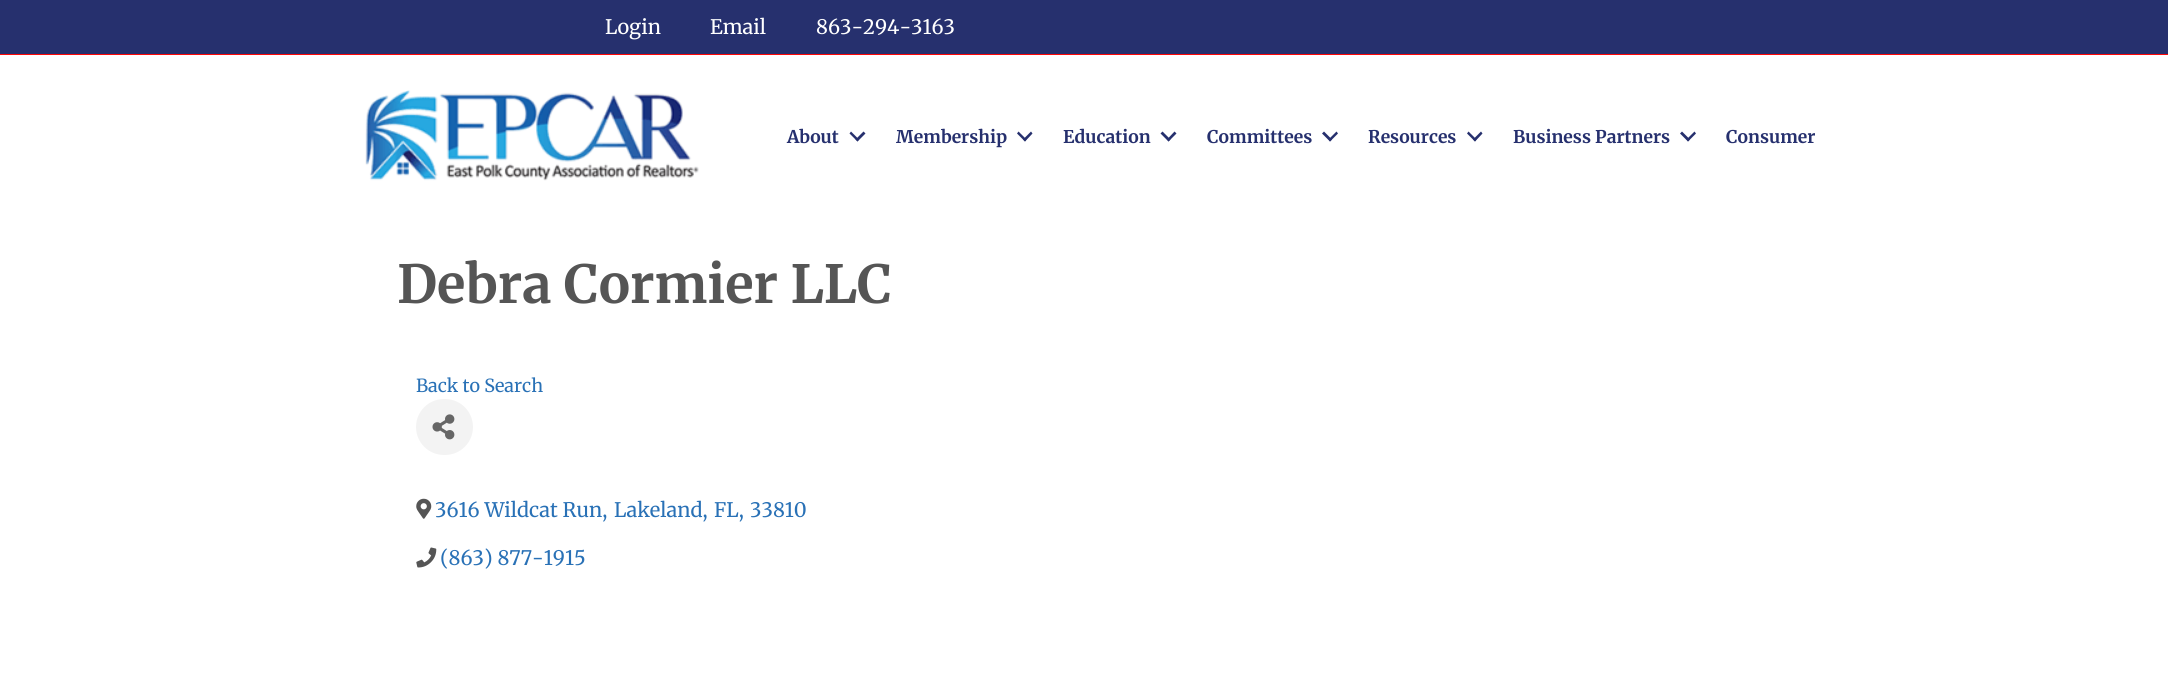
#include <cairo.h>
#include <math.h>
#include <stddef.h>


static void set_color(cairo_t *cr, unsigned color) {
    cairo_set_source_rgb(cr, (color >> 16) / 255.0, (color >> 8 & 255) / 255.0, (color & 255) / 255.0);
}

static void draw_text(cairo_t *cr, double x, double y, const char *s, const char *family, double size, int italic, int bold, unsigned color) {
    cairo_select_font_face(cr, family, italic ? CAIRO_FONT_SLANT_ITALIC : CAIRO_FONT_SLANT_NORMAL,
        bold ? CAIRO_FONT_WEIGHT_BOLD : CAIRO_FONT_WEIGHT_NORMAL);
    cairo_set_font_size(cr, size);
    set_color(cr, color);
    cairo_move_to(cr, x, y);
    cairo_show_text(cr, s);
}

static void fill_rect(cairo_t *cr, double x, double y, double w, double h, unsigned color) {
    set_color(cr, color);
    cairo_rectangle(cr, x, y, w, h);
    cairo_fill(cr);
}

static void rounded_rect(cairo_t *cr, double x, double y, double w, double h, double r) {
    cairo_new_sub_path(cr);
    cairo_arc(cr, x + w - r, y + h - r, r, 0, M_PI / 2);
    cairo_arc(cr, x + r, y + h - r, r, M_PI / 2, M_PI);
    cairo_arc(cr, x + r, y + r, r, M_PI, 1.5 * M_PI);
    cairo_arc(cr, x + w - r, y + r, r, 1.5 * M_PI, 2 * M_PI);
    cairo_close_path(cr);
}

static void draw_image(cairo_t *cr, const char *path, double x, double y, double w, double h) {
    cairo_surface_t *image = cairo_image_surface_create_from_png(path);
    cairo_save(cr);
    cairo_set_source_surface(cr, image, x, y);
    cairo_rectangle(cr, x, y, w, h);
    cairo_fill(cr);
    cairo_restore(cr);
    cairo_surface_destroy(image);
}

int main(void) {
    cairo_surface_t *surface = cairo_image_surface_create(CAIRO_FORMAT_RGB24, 2168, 698);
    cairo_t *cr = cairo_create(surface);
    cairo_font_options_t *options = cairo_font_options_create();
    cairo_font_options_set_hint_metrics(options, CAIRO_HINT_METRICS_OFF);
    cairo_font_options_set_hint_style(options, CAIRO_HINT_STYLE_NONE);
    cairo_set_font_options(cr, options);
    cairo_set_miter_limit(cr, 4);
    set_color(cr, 0xFFFFFF);
    cairo_paint(cr);
    fill_rect(cr, 0, 0, 2168, 54, 0x26306E);
    draw_text(cr, 605, 34, "Login", "Merriweather", 20, 0, 0, 0xFFFFFF);
    draw_text(cr, 710, 34, "Email", "Merriweather", 20, 0, 0, 0xFFFFFF);
    draw_text(cr, 816, 34, "863-294-3163", "Merriweather", 20, 0, 0, 0xFFFFFF);
    fill_rect(cr, 0, 54, 2168, 1, 0xFF0707);
    draw_image(cr, "assets/img1.png", 365, 90, 334, 91);
    draw_text(cr, 787, 143, "About", "Merriweather", 17.5, 0, 1, 0x26306E);
    cairo_new_path(cr);
    cairo_move_to(cr, 863.5, 131.5);
    cairo_line_to(cr, 865.5, 133.5);
    cairo_line_to(cr, 857.5, 141.5);
    cairo_line_to(cr, 855.5, 139.5);
    cairo_close_path(cr);
    cairo_fill(cr);
    cairo_new_path(cr);
    cairo_move_to(cr, 851, 131.5);
    cairo_line_to(cr, 859, 139.5);
    cairo_line_to(cr, 857.5, 141.5);
    cairo_line_to(cr, 849.5, 133.5);
    cairo_close_path(cr);
    cairo_fill(cr);
    draw_text(cr, 896, 143, "Membership", "Merriweather", 17.5, 0, 1, 0x26306E);
    cairo_new_path(cr);
    cairo_move_to(cr, 1031, 131.5);
    cairo_line_to(cr, 1032.5, 133.5);
    cairo_line_to(cr, 1025, 141.5);
    cairo_line_to(cr, 1023, 139.5);
    cairo_close_path(cr);
    cairo_fill(cr);
    cairo_new_path(cr);
    cairo_move_to(cr, 1018.5, 131.5);
    cairo_line_to(cr, 1026.5, 139.5);
    cairo_line_to(cr, 1025, 141.5);
    cairo_line_to(cr, 1017, 133.5);
    cairo_close_path(cr);
    cairo_fill(cr);
    draw_text(cr, 1063, 143, "Education", "Merriweather", 17.5, 0, 1, 0x26306E);
    cairo_new_path(cr);
    cairo_move_to(cr, 1174.5, 131.5);
    cairo_line_to(cr, 1176.5, 133.5);
    cairo_line_to(cr, 1168.5, 141.5);
    cairo_line_to(cr, 1167, 139.5);
    cairo_close_path(cr);
    cairo_fill(cr);
    cairo_new_path(cr);
    cairo_move_to(cr, 1162.5, 131.5);
    cairo_line_to(cr, 1170.5, 139.5);
    cairo_line_to(cr, 1168.5, 141.5);
    cairo_line_to(cr, 1160.5, 133.5);
    cairo_close_path(cr);
    cairo_fill(cr);
    draw_text(cr, 1207, 143, "Committees", "Merriweather", 17.5, 0, 1, 0x26306E);
    cairo_new_path(cr);
    cairo_move_to(cr, 1336.5, 131.5);
    cairo_line_to(cr, 1338, 133.5);
    cairo_line_to(cr, 1330, 141.5);
    cairo_line_to(cr, 1328.5, 139.5);
    cairo_close_path(cr);
    cairo_fill(cr);
    cairo_new_path(cr);
    cairo_move_to(cr, 1324, 131.5);
    cairo_line_to(cr, 1332, 139.5);
    cairo_line_to(cr, 1330, 141.5);
    cairo_line_to(cr, 1322, 133.5);
    cairo_close_path(cr);
    cairo_fill(cr);
    draw_text(cr, 1368, 143, "Resources", "Merriweather", 17.5, 0, 1, 0x26306E);
    cairo_new_path(cr);
    cairo_move_to(cr, 1481, 131.5);
    cairo_line_to(cr, 1482.5, 133.5);
    cairo_line_to(cr, 1475, 141.5);
    cairo_line_to(cr, 1473, 139.5);
    cairo_close_path(cr);
    cairo_fill(cr);
    cairo_new_path(cr);
    cairo_move_to(cr, 1468.5, 131.5);
    cairo_line_to(cr, 1476.5, 139.5);
    cairo_line_to(cr, 1475, 141.5);
    cairo_line_to(cr, 1467, 133.5);
    cairo_close_path(cr);
    cairo_fill(cr);
    draw_text(cr, 1513, 143, "Business Partners", "Merriweather", 17.5, 0, 1, 0x26306E);
    cairo_new_path(cr);
    cairo_move_to(cr, 1694.5, 131.5);
    cairo_line_to(cr, 1696, 133.5);
    cairo_line_to(cr, 1688, 141.5);
    cairo_line_to(cr, 1686.5, 139.5);
    cairo_close_path(cr);
    cairo_fill(cr);
    cairo_new_path(cr);
    cairo_move_to(cr, 1682, 131.5);
    cairo_line_to(cr, 1690, 139.5);
    cairo_line_to(cr, 1688, 141.5);
    cairo_line_to(cr, 1680, 133.5);
    cairo_close_path(cr);
    cairo_fill(cr);
    draw_text(cr, 1726, 143, "Consumer", "Merriweather", 17.5, 0, 1, 0x26306E);
    draw_text(cr, 397, 303, "Debra Cormier LLC", "Merriweather", 52.5, 0, 1, 0x555555);
    draw_text(cr, 416, 392, "Back to Search", "Merriweather", 18, 0, 0, 0x2971B6);
    set_color(cr, 0xF3F3F3);
    rounded_rect(cr, 416, 399, 57, 56, 28);
    cairo_fill(cr);
    draw_image(cr, "assets/img2.png", 432, 414, 23, 26);
    draw_image(cr, "assets/img3.png", 416, 498, 16, 21);
    draw_text(cr, 435, 517, "3616 Wildcat Run,", "Merriweather", 20, 0, 0, 0x2971B6);
    draw_text(cr, 614, 517, "Lakeland,", "Merriweather", 20, 0, 0, 0x2971B6);
    draw_text(cr, 714, 517, "FL,", "Merriweather", 20, 0, 0, 0x2971B6);
    draw_text(cr, 750, 517, "33810", "Merriweather", 20, 0, 0, 0x2971B6);
    draw_image(cr, "assets/img4.png", 416, 547, 21, 21);
    draw_text(cr, 440, 565, "(863) 877-1915", "Merriweather", 20, 0, 0, 0x2971B6);
    cairo_surface_write_to_png(surface, "output.png");
    cairo_font_options_destroy(options);
    cairo_destroy(cr);
    cairo_surface_destroy(surface);
    return 0;
}
